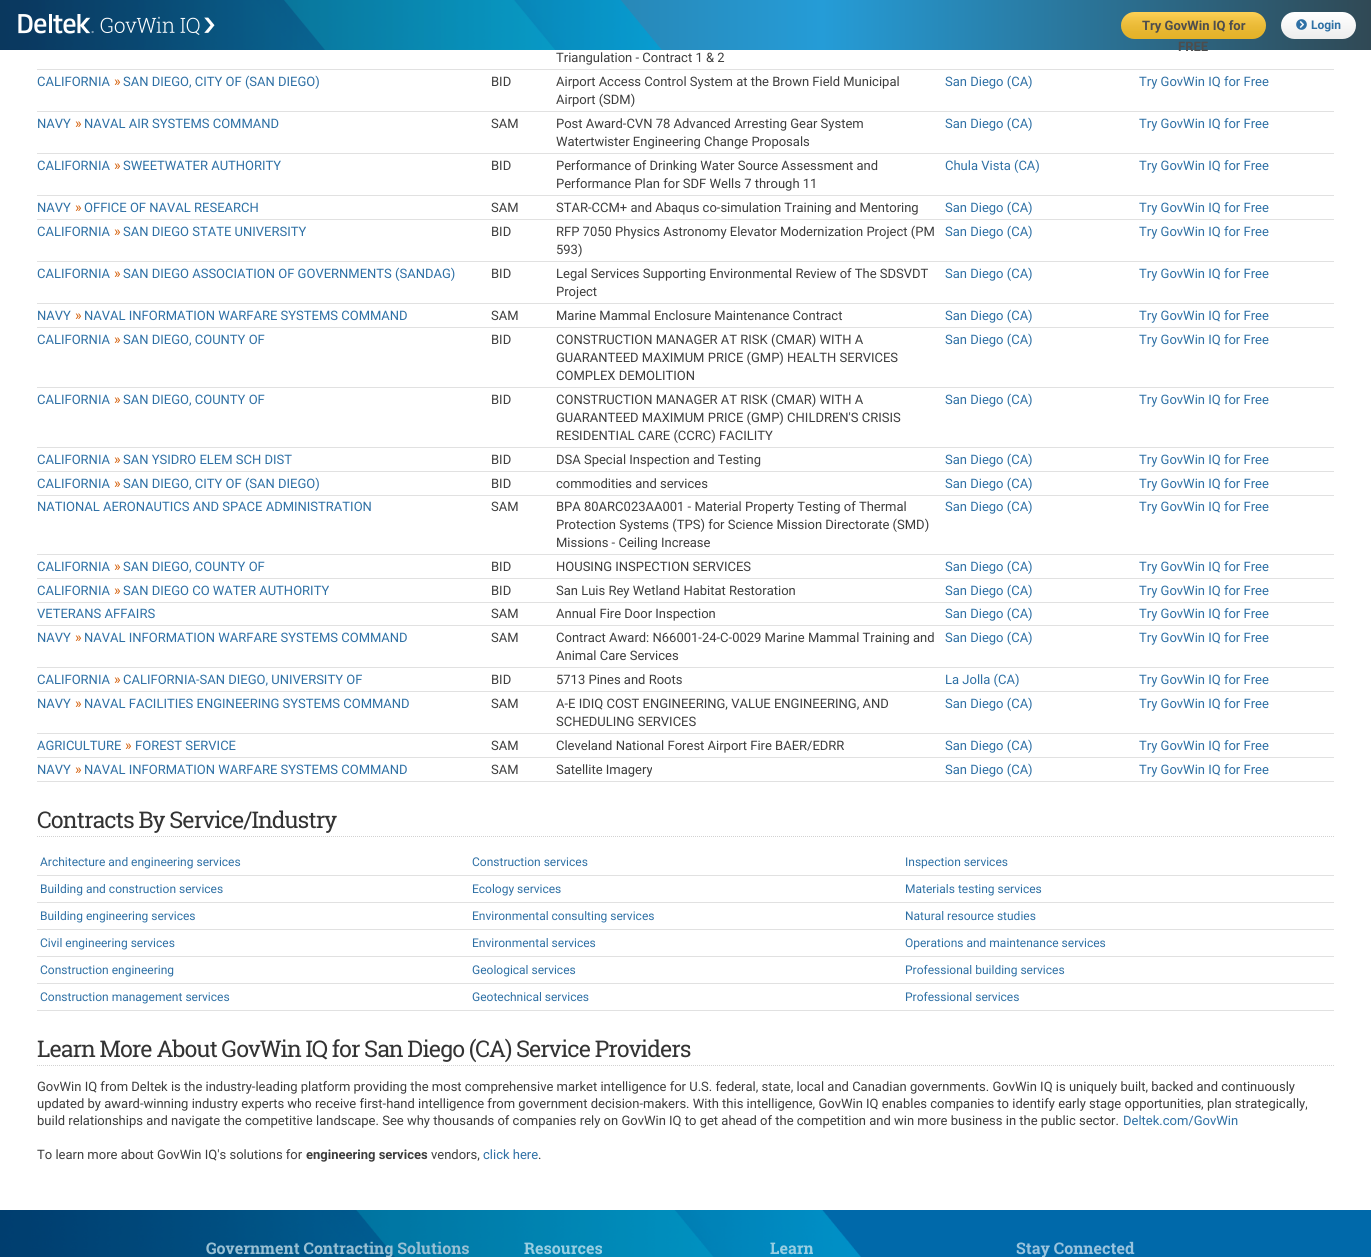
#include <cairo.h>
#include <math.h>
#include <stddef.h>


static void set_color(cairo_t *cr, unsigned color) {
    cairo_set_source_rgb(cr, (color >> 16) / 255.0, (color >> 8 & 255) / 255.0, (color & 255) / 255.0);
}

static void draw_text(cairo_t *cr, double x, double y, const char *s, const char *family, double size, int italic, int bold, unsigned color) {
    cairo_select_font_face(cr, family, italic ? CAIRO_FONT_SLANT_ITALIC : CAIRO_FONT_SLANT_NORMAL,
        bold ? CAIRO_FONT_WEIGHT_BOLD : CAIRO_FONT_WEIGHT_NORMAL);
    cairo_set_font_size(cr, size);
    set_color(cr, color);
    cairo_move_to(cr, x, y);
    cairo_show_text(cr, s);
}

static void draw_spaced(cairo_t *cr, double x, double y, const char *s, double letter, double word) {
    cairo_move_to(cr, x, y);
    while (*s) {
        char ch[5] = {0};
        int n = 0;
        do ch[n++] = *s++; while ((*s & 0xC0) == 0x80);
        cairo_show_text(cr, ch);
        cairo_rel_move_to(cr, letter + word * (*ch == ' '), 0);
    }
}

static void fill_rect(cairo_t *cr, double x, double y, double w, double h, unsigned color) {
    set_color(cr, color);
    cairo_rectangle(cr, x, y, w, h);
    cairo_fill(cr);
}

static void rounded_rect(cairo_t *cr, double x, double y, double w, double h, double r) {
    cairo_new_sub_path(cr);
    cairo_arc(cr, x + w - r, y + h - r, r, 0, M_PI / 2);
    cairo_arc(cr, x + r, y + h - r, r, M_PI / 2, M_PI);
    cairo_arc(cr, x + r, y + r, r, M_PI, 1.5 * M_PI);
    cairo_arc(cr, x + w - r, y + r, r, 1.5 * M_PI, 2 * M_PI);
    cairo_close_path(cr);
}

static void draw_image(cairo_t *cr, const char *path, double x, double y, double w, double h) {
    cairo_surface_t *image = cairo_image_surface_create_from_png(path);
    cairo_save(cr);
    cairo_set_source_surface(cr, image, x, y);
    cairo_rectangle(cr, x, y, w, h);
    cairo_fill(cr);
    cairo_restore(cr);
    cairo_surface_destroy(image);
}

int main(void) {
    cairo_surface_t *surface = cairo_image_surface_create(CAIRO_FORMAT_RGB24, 1371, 1257);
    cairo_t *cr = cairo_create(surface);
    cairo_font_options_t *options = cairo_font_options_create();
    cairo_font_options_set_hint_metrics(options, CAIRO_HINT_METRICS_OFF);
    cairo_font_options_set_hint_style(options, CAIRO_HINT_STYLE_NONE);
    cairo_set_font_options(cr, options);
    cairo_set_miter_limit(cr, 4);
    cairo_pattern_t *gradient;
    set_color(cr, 0xFFFFFF);
    cairo_paint(cr);
    gradient = cairo_pattern_create_linear(0, 25, 1371, 25);
    cairo_pattern_add_color_stop_rgba(gradient, 0, 0.192, 0.286, 0.337, 1);
    cairo_pattern_add_color_stop_rgba(gradient, 0.6, 0.145, 0.612, 0.843, 1);
    cairo_pattern_add_color_stop_rgba(gradient, 1, 0.188, 0.286, 0.333, 1);
    cairo_set_source(cr, gradient);
    cairo_pattern_destroy(gradient);
    cairo_rectangle(cr, 0, 0, 1371, 50);
    cairo_fill(cr);
    draw_image(cr, "assets/img1.png", 0, 0, 662, 50);
    draw_image(cr, "assets/img2.png", 18, 14, 197, 21);
    set_color(cr, 0xFEC62C);
    rounded_rect(cr, 1121, 12, 145, 27, 13.5);
    cairo_fill(cr);
    gradient = cairo_pattern_create_linear(1194, 12, 1194, 39);
    cairo_pattern_add_color_stop_rgba(gradient, 0, 1, 1, 1, 0.2);
    cairo_pattern_add_color_stop_rgba(gradient, 1, 0, 0, 0, 0.1);
    cairo_set_source(cr, gradient);
    cairo_pattern_destroy(gradient);
    rounded_rect(cr, 1121, 12, 145, 27, 13.5);
    cairo_fill(cr);
    draw_text(cr, 1142, 30, "Try GovWin IQ for", "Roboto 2", 13, 0, 1, 0x4D4D4D);
    draw_text(cr, 1178, 51, "FREE", "Roboto 2", 13, 0, 1, 0x4D4D4D);
    gradient = cairo_pattern_create_linear(1319, 12, 1319, 39);
    cairo_pattern_add_color_stop_rgba(gradient, 0, 1, 1, 1, 1);
    cairo_pattern_add_color_stop_rgba(gradient, 1, 0.929, 0.929, 0.929, 1);
    cairo_set_source(cr, gradient);
    cairo_pattern_destroy(gradient);
    rounded_rect(cr, 1281, 12, 75, 27, 13.5);
    cairo_fill(cr);
    draw_image(cr, "assets/img3.png", 1296, 19, 11, 11);
    draw_text(cr, 1311, 29, "Login", "Roboto 2", 12, 0, 1, 0x2E70A5);
    fill_rect(cr, 37, 69, 1297, 1, 0xE1E1E1);
    draw_text(cr, 556, 62, "Triangulation - Contract 1 & 2", "Roboto", 13, 0, 0, 0x3D3D3D);
    fill_rect(cr, 37, 111, 1297, 1, 0xE1E1E1);
    draw_text(cr, 37, 86, "CALIFORNIA", "Roboto", 13, 0, 0, 0x2E70A5);
    draw_text(cr, 114, 86, "»", "Roboto", 14, 0, 0, 0xD5600B);
    draw_text(cr, 123, 86, "SAN DIEGO, CITY OF (SAN DIEGO)", "Roboto", 13, 0, 0, 0x2E70A5);
    draw_text(cr, 491, 86, "BID", "Roboto", 13, 0, 0, 0x3D3D3D);
    draw_text(cr, 556, 86, "Airport Access Control System at the Brown Field Municipal", "Roboto", 13, 0, 0, 0x3D3D3D);
    draw_text(cr, 556, 104, "Airport (SDM)", "Roboto", 13, 0, 0, 0x3D3D3D);
    draw_text(cr, 945, 86, "San Diego (CA)", "Roboto", 13, 0, 0, 0x2E70A5);
    draw_text(cr, 1139, 86, "Try GovWin IQ for Free", "Roboto", 13, 0, 0, 0x2E70A5);
    fill_rect(cr, 37, 153, 1297, 1, 0xE1E1E1);
    draw_text(cr, 37, 128, "NAVY", "Roboto", 13, 0, 0, 0x2E70A5);
    draw_text(cr, 75, 128, "»", "Roboto", 14, 0, 0, 0xD5600B);
    draw_text(cr, 84, 128, "NAVAL AIR SYSTEMS COMMAND", "Roboto", 13, 0, 0, 0x2E70A5);
    draw_text(cr, 491, 128, "SAM", "Roboto", 13, 0, 0, 0x3D3D3D);
    draw_text(cr, 556, 128, "Post Award-CVN 78 Advanced Arresting Gear System", "Roboto", 13, 0, 0, 0x3D3D3D);
    draw_text(cr, 556, 146, "Watertwister Engineering Change Proposals", "Roboto", 13, 0, 0, 0x3D3D3D);
    draw_text(cr, 945, 128, "San Diego (CA)", "Roboto", 13, 0, 0, 0x2E70A5);
    draw_text(cr, 1139, 128, "Try GovWin IQ for Free", "Roboto", 13, 0, 0, 0x2E70A5);
    fill_rect(cr, 37, 195, 1297, 1, 0xE1E1E1);
    draw_text(cr, 37, 170, "CALIFORNIA", "Roboto", 13, 0, 0, 0x2E70A5);
    draw_text(cr, 114, 170, "»", "Roboto", 14, 0, 0, 0xD5600B);
    draw_text(cr, 123, 170, "SWEETWATER AUTHORITY", "Roboto", 13, 0, 0, 0x2E70A5);
    draw_text(cr, 491, 170, "BID", "Roboto", 13, 0, 0, 0x3D3D3D);
    draw_text(cr, 556, 170, "Performance of Drinking Water Source Assessment and", "Roboto", 13, 0, 0, 0x3D3D3D);
    draw_text(cr, 556, 188, "Performance Plan for SDF Wells 7 through 11", "Roboto", 13, 0, 0, 0x3D3D3D);
    draw_text(cr, 945, 170, "Chula Vista (CA)", "Roboto", 13, 0, 0, 0x2E70A5);
    draw_text(cr, 1139, 170, "Try GovWin IQ for Free", "Roboto", 13, 0, 0, 0x2E70A5);
    fill_rect(cr, 37, 219, 1297, 1, 0xE1E1E1);
    draw_text(cr, 37, 212, "NAVY", "Roboto", 13, 0, 0, 0x2E70A5);
    draw_text(cr, 75, 212, "»", "Roboto", 14, 0, 0, 0xD5600B);
    draw_text(cr, 84, 212, "OFFICE OF NAVAL RESEARCH", "Roboto", 13, 0, 0, 0x2E70A5);
    draw_text(cr, 491, 212, "SAM", "Roboto", 13, 0, 0, 0x3D3D3D);
    draw_text(cr, 556, 212, "STAR-CCM+ and Abaqus co-simulation Training and Mentoring", "Roboto", 13, 0, 0, 0x3D3D3D);
    draw_text(cr, 945, 212, "San Diego (CA)", "Roboto", 13, 0, 0, 0x2E70A5);
    draw_text(cr, 1139, 212, "Try GovWin IQ for Free", "Roboto", 13, 0, 0, 0x2E70A5);
    fill_rect(cr, 37, 261, 1297, 1, 0xE1E1E1);
    draw_text(cr, 37, 236, "CALIFORNIA", "Roboto", 13, 0, 0, 0x2E70A5);
    draw_text(cr, 114, 236, "»", "Roboto", 14, 0, 0, 0xD5600B);
    draw_text(cr, 123, 236, "SAN DIEGO STATE UNIVERSITY", "Roboto", 13, 0, 0, 0x2E70A5);
    draw_text(cr, 491, 236, "BID", "Roboto", 13, 0, 0, 0x3D3D3D);
    draw_text(cr, 556, 236, "RFP 7050 Physics Astronomy Elevator Modernization Project (PM", "Roboto", 13, 0, 0, 0x3D3D3D);
    draw_text(cr, 556, 254, "593)", "Roboto", 13, 0, 0, 0x3D3D3D);
    draw_text(cr, 945, 236, "San Diego (CA)", "Roboto", 13, 0, 0, 0x2E70A5);
    draw_text(cr, 1139, 236, "Try GovWin IQ for Free", "Roboto", 13, 0, 0, 0x2E70A5);
    fill_rect(cr, 37, 303, 1297, 1, 0xE1E1E1);
    draw_text(cr, 37, 278, "CALIFORNIA", "Roboto", 13, 0, 0, 0x2E70A5);
    draw_text(cr, 114, 278, "»", "Roboto", 14, 0, 0, 0xD5600B);
    draw_text(cr, 123, 278, "SAN DIEGO ASSOCIATION OF GOVERNMENTS (SANDAG)", "Roboto", 13, 0, 0, 0x2E70A5);
    draw_text(cr, 491, 278, "BID", "Roboto", 13, 0, 0, 0x3D3D3D);
    draw_text(cr, 556, 278, "Legal Services Supporting Environmental Review of The SDSVDT", "Roboto", 13, 0, 0, 0x3D3D3D);
    draw_text(cr, 556, 296, "Project", "Roboto", 13, 0, 0, 0x3D3D3D);
    draw_text(cr, 945, 278, "San Diego (CA)", "Roboto", 13, 0, 0, 0x2E70A5);
    draw_text(cr, 1139, 278, "Try GovWin IQ for Free", "Roboto", 13, 0, 0, 0x2E70A5);
    fill_rect(cr, 37, 327, 1297, 1, 0xE1E1E1);
    draw_text(cr, 37, 320, "NAVY", "Roboto", 13, 0, 0, 0x2E70A5);
    draw_text(cr, 75, 320, "»", "Roboto", 14, 0, 0, 0xD5600B);
    draw_text(cr, 84, 320, "NAVAL INFORMATION WARFARE SYSTEMS COMMAND", "Roboto", 13, 0, 0, 0x2E70A5);
    draw_text(cr, 491, 320, "SAM", "Roboto", 13, 0, 0, 0x3D3D3D);
    draw_text(cr, 556, 320, "Marine Mammal Enclosure Maintenance Contract", "Roboto", 13, 0, 0, 0x3D3D3D);
    draw_text(cr, 945, 320, "San Diego (CA)", "Roboto", 13, 0, 0, 0x2E70A5);
    draw_text(cr, 1139, 320, "Try GovWin IQ for Free", "Roboto", 13, 0, 0, 0x2E70A5);
    fill_rect(cr, 37, 387, 1297, 1, 0xE1E1E1);
    draw_text(cr, 37, 344, "CALIFORNIA", "Roboto", 13, 0, 0, 0x2E70A5);
    draw_text(cr, 114, 344, "»", "Roboto", 14, 0, 0, 0xD5600B);
    draw_text(cr, 123, 344, "SAN DIEGO, COUNTY OF", "Roboto", 13, 0, 0, 0x2E70A5);
    draw_text(cr, 491, 344, "BID", "Roboto", 13, 0, 0, 0x3D3D3D);
    draw_text(cr, 556, 344, "CONSTRUCTION MANAGER AT RISK (CMAR) WITH A", "Roboto", 13, 0, 0, 0x3D3D3D);
    draw_text(cr, 556, 362, "GUARANTEED MAXIMUM PRICE (GMP) HEALTH SERVICES", "Roboto", 13, 0, 0, 0x3D3D3D);
    draw_text(cr, 556, 380, "COMPLEX DEMOLITION", "Roboto", 13, 0, 0, 0x3D3D3D);
    draw_text(cr, 945, 344, "San Diego (CA)", "Roboto", 13, 0, 0, 0x2E70A5);
    draw_text(cr, 1139, 344, "Try GovWin IQ for Free", "Roboto", 13, 0, 0, 0x2E70A5);
    fill_rect(cr, 37, 447, 1297, 1, 0xE1E1E1);
    draw_text(cr, 37, 404, "CALIFORNIA", "Roboto", 13, 0, 0, 0x2E70A5);
    draw_text(cr, 114, 404, "»", "Roboto", 14, 0, 0, 0xD5600B);
    draw_text(cr, 123, 404, "SAN DIEGO, COUNTY OF", "Roboto", 13, 0, 0, 0x2E70A5);
    draw_text(cr, 491, 404, "BID", "Roboto", 13, 0, 0, 0x3D3D3D);
    draw_text(cr, 556, 404, "CONSTRUCTION MANAGER AT RISK (CMAR) WITH A", "Roboto", 13, 0, 0, 0x3D3D3D);
    draw_text(cr, 556, 422, "GUARANTEED MAXIMUM PRICE (GMP) CHILDREN'S CRISIS", "Roboto", 13, 0, 0, 0x3D3D3D);
    draw_text(cr, 556, 440, "RESIDENTIAL CARE (CCRC) FACILITY", "Roboto", 13, 0, 0, 0x3D3D3D);
    draw_text(cr, 945, 404, "San Diego (CA)", "Roboto", 13, 0, 0, 0x2E70A5);
    draw_text(cr, 1139, 404, "Try GovWin IQ for Free", "Roboto", 13, 0, 0, 0x2E70A5);
    fill_rect(cr, 37, 471, 1297, 1, 0xE1E1E1);
    draw_text(cr, 37, 464, "CALIFORNIA", "Roboto", 13, 0, 0, 0x2E70A5);
    draw_text(cr, 114, 464, "»", "Roboto", 14, 0, 0, 0xD5600B);
    draw_text(cr, 123, 464, "SAN YSIDRO ELEM SCH DIST", "Roboto", 13, 0, 0, 0x2E70A5);
    draw_text(cr, 491, 464, "BID", "Roboto", 13, 0, 0, 0x3D3D3D);
    draw_text(cr, 556, 464, "DSA Special Inspection and Testing", "Roboto", 13, 0, 0, 0x3D3D3D);
    draw_text(cr, 945, 464, "San Diego (CA)", "Roboto", 13, 0, 0, 0x2E70A5);
    draw_text(cr, 1139, 464, "Try GovWin IQ for Free", "Roboto", 13, 0, 0, 0x2E70A5);
    fill_rect(cr, 37, 495, 1297, 1, 0xE1E1E1);
    draw_text(cr, 37, 488, "CALIFORNIA", "Roboto", 13, 0, 0, 0x2E70A5);
    draw_text(cr, 114, 488, "»", "Roboto", 14, 0, 0, 0xD5600B);
    draw_text(cr, 123, 488, "SAN DIEGO, CITY OF (SAN DIEGO)", "Roboto", 13, 0, 0, 0x2E70A5);
    draw_text(cr, 491, 488, "BID", "Roboto", 13, 0, 0, 0x3D3D3D);
    draw_text(cr, 556, 488, "commodities and services", "Roboto", 13, 0, 0, 0x3D3D3D);
    draw_text(cr, 945, 488, "San Diego (CA)", "Roboto", 13, 0, 0, 0x2E70A5);
    draw_text(cr, 1139, 488, "Try GovWin IQ for Free", "Roboto", 13, 0, 0, 0x2E70A5);
    fill_rect(cr, 37, 554, 1297, 1, 0xE1E1E1);
    draw_text(cr, 37, 511, "NATIONAL AERONAUTICS AND SPACE ADMINISTRATION", "Roboto", 13, 0, 0, 0x2E70A5);
    draw_text(cr, 491, 511, "SAM", "Roboto", 13, 0, 0, 0x3D3D3D);
    draw_text(cr, 556, 511, "BPA 80ARC023AA001 - Material Property Testing of Thermal", "Roboto", 13, 0, 0, 0x3D3D3D);
    draw_text(cr, 556, 529, "Protection Systems (TPS) for Science Mission Directorate (SMD)", "Roboto", 13, 0, 0, 0x3D3D3D);
    draw_text(cr, 556, 547, "Missions - Ceiling Increase", "Roboto", 13, 0, 0, 0x3D3D3D);
    draw_text(cr, 945, 511, "San Diego (CA)", "Roboto", 13, 0, 0, 0x2E70A5);
    draw_text(cr, 1139, 511, "Try GovWin IQ for Free", "Roboto", 13, 0, 0, 0x2E70A5);
    fill_rect(cr, 37, 578, 1297, 1, 0xE1E1E1);
    draw_text(cr, 37, 571, "CALIFORNIA", "Roboto", 13, 0, 0, 0x2E70A5);
    draw_text(cr, 114, 571, "»", "Roboto", 14, 0, 0, 0xD5600B);
    draw_text(cr, 123, 571, "SAN DIEGO, COUNTY OF", "Roboto", 13, 0, 0, 0x2E70A5);
    draw_text(cr, 491, 571, "BID", "Roboto", 13, 0, 0, 0x3D3D3D);
    draw_text(cr, 556, 571, "HOUSING INSPECTION SERVICES", "Roboto", 13, 0, 0, 0x3D3D3D);
    draw_text(cr, 945, 571, "San Diego (CA)", "Roboto", 13, 0, 0, 0x2E70A5);
    draw_text(cr, 1139, 571, "Try GovWin IQ for Free", "Roboto", 13, 0, 0, 0x2E70A5);
    fill_rect(cr, 37, 602, 1297, 1, 0xE1E1E1);
    draw_text(cr, 37, 595, "CALIFORNIA", "Roboto", 13, 0, 0, 0x2E70A5);
    draw_text(cr, 114, 595, "»", "Roboto", 14, 0, 0, 0xD5600B);
    draw_text(cr, 123, 595, "SAN DIEGO CO WATER AUTHORITY", "Roboto", 13, 0, 0, 0x2E70A5);
    draw_text(cr, 491, 595, "BID", "Roboto", 13, 0, 0, 0x3D3D3D);
    draw_text(cr, 556, 595, "San Luis Rey Wetland Habitat Restoration", "Roboto", 13, 0, 0, 0x3D3D3D);
    draw_text(cr, 945, 595, "San Diego (CA)", "Roboto", 13, 0, 0, 0x2E70A5);
    draw_text(cr, 1139, 595, "Try GovWin IQ for Free", "Roboto", 13, 0, 0, 0x2E70A5);
    fill_rect(cr, 37, 625, 1297, 1, 0xE1E1E1);
    draw_text(cr, 37, 618, "VETERANS AFFAIRS", "Roboto", 13, 0, 0, 0x2E70A5);
    draw_text(cr, 491, 618, "SAM", "Roboto", 13, 0, 0, 0x3D3D3D);
    draw_text(cr, 556, 618, "Annual Fire Door Inspection", "Roboto", 13, 0, 0, 0x3D3D3D);
    draw_text(cr, 945, 618, "San Diego (CA)", "Roboto", 13, 0, 0, 0x2E70A5);
    draw_text(cr, 1139, 618, "Try GovWin IQ for Free", "Roboto", 13, 0, 0, 0x2E70A5);
    fill_rect(cr, 37, 667, 1297, 1, 0xE1E1E1);
    draw_text(cr, 37, 642, "NAVY", "Roboto", 13, 0, 0, 0x2E70A5);
    draw_text(cr, 75, 642, "»", "Roboto", 14, 0, 0, 0xD5600B);
    draw_text(cr, 84, 642, "NAVAL INFORMATION WARFARE SYSTEMS COMMAND", "Roboto", 13, 0, 0, 0x2E70A5);
    draw_text(cr, 491, 642, "SAM", "Roboto", 13, 0, 0, 0x3D3D3D);
    draw_text(cr, 556, 642, "Contract Award: N66001-24-C-0029 Marine Mammal Training and", "Roboto", 13, 0, 0, 0x3D3D3D);
    draw_text(cr, 556, 660, "Animal Care Services", "Roboto", 13, 0, 0, 0x3D3D3D);
    draw_text(cr, 945, 642, "San Diego (CA)", "Roboto", 13, 0, 0, 0x2E70A5);
    draw_text(cr, 1139, 642, "Try GovWin IQ for Free", "Roboto", 13, 0, 0, 0x2E70A5);
    fill_rect(cr, 37, 691, 1297, 1, 0xE1E1E1);
    draw_text(cr, 37, 684, "CALIFORNIA", "Roboto", 13, 0, 0, 0x2E70A5);
    draw_text(cr, 114, 684, "»", "Roboto", 14, 0, 0, 0xD5600B);
    draw_text(cr, 123, 684, "CALIFORNIA-SAN DIEGO, UNIVERSITY OF", "Roboto", 13, 0, 0, 0x2E70A5);
    draw_text(cr, 491, 684, "BID", "Roboto", 13, 0, 0, 0x3D3D3D);
    draw_text(cr, 556, 684, "5713 Pines and Roots", "Roboto", 13, 0, 0, 0x3D3D3D);
    draw_text(cr, 945, 684, "La Jolla (CA)", "Roboto", 13, 0, 0, 0x2E70A5);
    draw_text(cr, 1139, 684, "Try GovWin IQ for Free", "Roboto", 13, 0, 0, 0x2E70A5);
    fill_rect(cr, 37, 733, 1297, 1, 0xE1E1E1);
    draw_text(cr, 37, 708, "NAVY", "Roboto", 13, 0, 0, 0x2E70A5);
    draw_text(cr, 75, 708, "»", "Roboto", 14, 0, 0, 0xD5600B);
    draw_text(cr, 84, 708, "NAVAL FACILITIES ENGINEERING SYSTEMS COMMAND", "Roboto", 13, 0, 0, 0x2E70A5);
    draw_text(cr, 491, 708, "SAM", "Roboto", 13, 0, 0, 0x3D3D3D);
    draw_text(cr, 556, 708, "A-E IDIQ COST ENGINEERING, VALUE ENGINEERING, AND", "Roboto", 13, 0, 0, 0x3D3D3D);
    draw_text(cr, 556, 726, "SCHEDULING SERVICES", "Roboto", 13, 0, 0, 0x3D3D3D);
    draw_text(cr, 945, 708, "San Diego (CA)", "Roboto", 13, 0, 0, 0x2E70A5);
    draw_text(cr, 1139, 708, "Try GovWin IQ for Free", "Roboto", 13, 0, 0, 0x2E70A5);
    fill_rect(cr, 37, 757, 1297, 1, 0xE1E1E1);
    draw_text(cr, 37, 750, "AGRICULTURE", "Roboto", 13, 0, 0, 0x2E70A5);
    draw_text(cr, 125, 750, "»", "Roboto", 14, 0, 0, 0xD5600B);
    draw_text(cr, 135, 750, "FOREST SERVICE", "Roboto", 13, 0, 0, 0x2E70A5);
    draw_text(cr, 491, 750, "SAM", "Roboto", 13, 0, 0, 0x3D3D3D);
    draw_text(cr, 556, 750, "Cleveland National Forest Airport Fire BAER/EDRR", "Roboto", 13, 0, 0, 0x3D3D3D);
    draw_text(cr, 945, 750, "San Diego (CA)", "Roboto", 13, 0, 0, 0x2E70A5);
    draw_text(cr, 1139, 750, "Try GovWin IQ for Free", "Roboto", 13, 0, 0, 0x2E70A5);
    fill_rect(cr, 37, 781, 1297, 1, 0xE1E1E1);
    draw_text(cr, 37, 774, "NAVY", "Roboto", 13, 0, 0, 0x2E70A5);
    draw_text(cr, 75, 774, "»", "Roboto", 14, 0, 0, 0xD5600B);
    draw_text(cr, 84, 774, "NAVAL INFORMATION WARFARE SYSTEMS COMMAND", "Roboto", 13, 0, 0, 0x2E70A5);
    draw_text(cr, 491, 774, "SAM", "Roboto", 13, 0, 0, 0x3D3D3D);
    draw_text(cr, 556, 774, "Satellite Imagery", "Roboto", 13, 0, 0, 0x3D3D3D);
    draw_text(cr, 945, 774, "San Diego (CA)", "Roboto", 13, 0, 0, 0x2E70A5);
    draw_text(cr, 1139, 774, "Try GovWin IQ for Free", "Roboto", 13, 0, 0, 0x2E70A5);
    cairo_new_path(cr);
    cairo_move_to(cr, 37, 836.5);
    cairo_line_to(cr, 1334, 836.5);
    set_color(cr, 0xD2D2D2);
    cairo_set_line_width(cr, 1);
    cairo_set_dash(cr, (double[]){1, 1}, 2, 0);
    cairo_stroke(cr);
    cairo_select_font_face(cr, "Roboto Slab", CAIRO_FONT_SLANT_NORMAL, CAIRO_FONT_WEIGHT_NORMAL);
    cairo_set_font_size(cr, 23);
    set_color(cr, 0x333333);
    draw_spaced(cr, 37, 828, "Contracts By Service/Industry", -1, 0);
    fill_rect(cr, 37, 875, 1297, 1, 0xE1E1E1);
    draw_text(cr, 40, 866, "Architecture and engineering services", "Roboto", 12, 0, 0, 0x2E70A5);
    draw_text(cr, 472, 866, "Construction services", "Roboto", 12, 0, 0, 0x2E70A5);
    draw_text(cr, 905, 866, "Inspection services", "Roboto", 12, 0, 0, 0x2E70A5);
    fill_rect(cr, 37, 902, 1297, 1, 0xE1E1E1);
    draw_text(cr, 40, 893, "Building and construction services", "Roboto", 12, 0, 0, 0x2E70A5);
    draw_text(cr, 472, 893, "Ecology services", "Roboto", 12, 0, 0, 0x2E70A5);
    draw_text(cr, 905, 893, "Materials testing services", "Roboto", 12, 0, 0, 0x2E70A5);
    fill_rect(cr, 37, 929, 1297, 1, 0xE1E1E1);
    draw_text(cr, 40, 920, "Building engineering services", "Roboto", 12, 0, 0, 0x2E70A5);
    draw_text(cr, 472, 920, "Environmental consulting services", "Roboto", 12, 0, 0, 0x2E70A5);
    draw_text(cr, 905, 920, "Natural resource studies", "Roboto", 12, 0, 0, 0x2E70A5);
    fill_rect(cr, 37, 956, 1297, 1, 0xE1E1E1);
    draw_text(cr, 40, 947, "Civil engineering services", "Roboto", 12, 0, 0, 0x2E70A5);
    draw_text(cr, 472, 947, "Environmental services", "Roboto", 12, 0, 0, 0x2E70A5);
    draw_text(cr, 905, 947, "Operations and maintenance services", "Roboto", 12, 0, 0, 0x2E70A5);
    fill_rect(cr, 37, 983, 1297, 1, 0xE1E1E1);
    draw_text(cr, 40, 974, "Construction engineering", "Roboto", 12, 0, 0, 0x2E70A5);
    draw_text(cr, 472, 974, "Geological services", "Roboto", 12, 0, 0, 0x2E70A5);
    draw_text(cr, 905, 974, "Professional building services", "Roboto", 12, 0, 0, 0x2E70A5);
    fill_rect(cr, 37, 1010, 1297, 1, 0xE1E1E1);
    draw_text(cr, 40, 1001, "Construction management services", "Roboto", 12, 0, 0, 0x2E70A5);
    draw_text(cr, 472, 1001, "Geotechnical services", "Roboto", 12, 0, 0, 0x2E70A5);
    draw_text(cr, 905, 1001, "Professional services", "Roboto", 12, 0, 0, 0x2E70A5);
    cairo_new_path(cr);
    cairo_move_to(cr, 37, 1065.5);
    cairo_line_to(cr, 1334, 1065.5);
    set_color(cr, 0xD2D2D2);
    cairo_stroke(cr);
    cairo_select_font_face(cr, "Roboto Slab", CAIRO_FONT_SLANT_NORMAL, CAIRO_FONT_WEIGHT_NORMAL);
    cairo_set_font_size(cr, 23);
    set_color(cr, 0x333333);
    draw_spaced(cr, 37, 1057, "Learn More About GovWin IQ for San Diego (CA) Service Providers", -1, 0);
    draw_text(cr, 37, 1091, "GovWin IQ from Deltek is the industry-leading platform providing the most comprehensive market intelligence for U.S. federal, state, local and Canadian governments. GovWin IQ is uniquely built, backed and continuously", "Roboto", 13, 0, 0, 0x3D3D3D);
    draw_text(cr, 37, 1108, "updated by award-winning industry experts who receive first-hand intelligence from government decision-makers. With this intelligence, GovWin IQ enables companies to identify early stage opportunities, plan strategically,", "Roboto", 13, 0, 0, 0x3D3D3D);
    draw_text(cr, 37, 1125, "build relationships and navigate the competitive landscape. See why thousands of companies rely on GovWin IQ to get ahead of the competition and win more business in the public sector.", "Roboto", 13, 0, 0, 0x3D3D3D);
    draw_text(cr, 1123, 1125, "Deltek.com/GovWin", "Roboto", 13, 0, 0, 0x2E70A5);
    draw_text(cr, 37, 1159, "To learn more about GovWin IQ's solutions for", "Roboto", 13, 0, 0, 0x3D3D3D);
    draw_text(cr, 306, 1159, "engineering services", "Roboto", 13, 0, 1, 0x3D3D3D);
    draw_text(cr, 431, 1159, "vendors,", "Roboto", 13, 0, 0, 0x3D3D3D);
    draw_text(cr, 483, 1159, "click here", "Roboto", 13, 0, 0, 0x2E70A5);
    draw_text(cr, 538, 1159, ".", "Roboto", 13, 0, 0, 0x3D3D3D);
    fill_rect(cr, 0, 1210, 1371, 47, 0x0069AA);
    draw_image(cr, "assets/img4.png", 0, 1210, 861, 47);
    draw_text(cr, 206, 1254, "Government Contracting Solutions", "Roboto Slab", 16, 0, 1, 0x99C0D3);
    draw_text(cr, 524, 1254, "Resources", "Roboto Slab", 16, 0, 1, 0x99CEE1);
    draw_text(cr, 770, 1254, "Learn", "Roboto Slab", 16, 0, 1, 0x99CEE1);
    draw_text(cr, 1016, 1254, "Stay Connected", "Roboto Slab", 16, 0, 1, 0x99C3DD);
    cairo_surface_write_to_png(surface, "output.png");
    cairo_font_options_destroy(options);
    cairo_destroy(cr);
    cairo_surface_destroy(surface);
    return 0;
}
